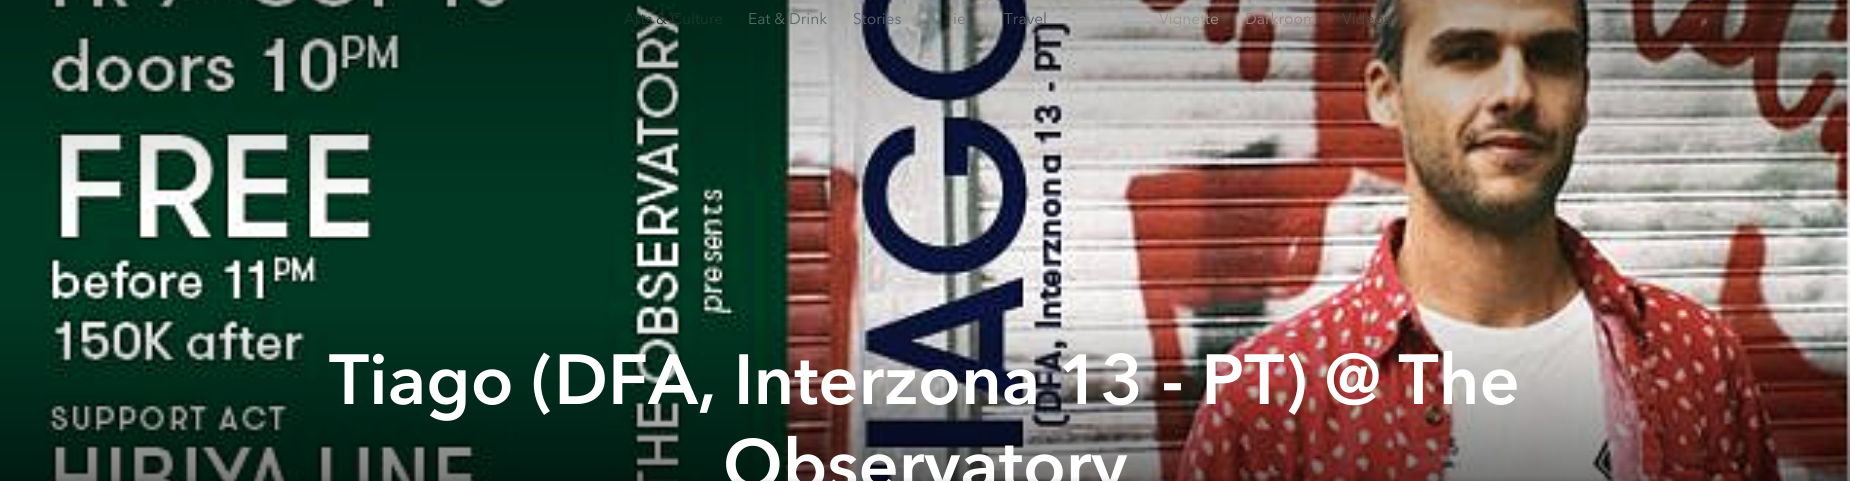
#include <cairo.h>
#include <math.h>
#include <stddef.h>


static void set_color(cairo_t *cr, unsigned color) {
    cairo_set_source_rgb(cr, (color >> 16) / 255.0, (color >> 8 & 255) / 255.0, (color & 255) / 255.0);
}

static void draw_text(cairo_t *cr, double x, double y, const char *s, const char *family, double size, int italic, int bold, unsigned color) {
    cairo_select_font_face(cr, family, italic ? CAIRO_FONT_SLANT_ITALIC : CAIRO_FONT_SLANT_NORMAL,
        bold ? CAIRO_FONT_WEIGHT_BOLD : CAIRO_FONT_WEIGHT_NORMAL);
    cairo_set_font_size(cr, size);
    set_color(cr, color);
    cairo_move_to(cr, x, y);
    cairo_show_text(cr, s);
}

static void rounded_rect(cairo_t *cr, double x, double y, double w, double h, double r) {
    cairo_new_sub_path(cr);
    cairo_arc(cr, x + w - r, y + h - r, r, 0, M_PI / 2);
    cairo_arc(cr, x + r, y + h - r, r, M_PI / 2, M_PI);
    cairo_arc(cr, x + r, y + r, r, M_PI, 1.5 * M_PI);
    cairo_arc(cr, x + w - r, y + r, r, 1.5 * M_PI, 2 * M_PI);
    cairo_close_path(cr);
}

static void draw_shadow(cairo_t *cr, double x, double y, double w, double h, double r, double blur, double alpha) {
    cairo_push_group_with_content(cr, CAIRO_CONTENT_ALPHA);
    cairo_set_operator(cr, CAIRO_OPERATOR_SOURCE);
    for (int i = 15; i >= -15 && fmin(w, h) + blur * i / 3 > 0; i -= 2) {
        double e = blur * i / 6;
        cairo_set_source_rgba(cr, 0, 0, 0, alpha * erfc((i - 1) / 8.5) / 2);
        rounded_rect(cr, x - e, y - e, w + 2 * e, h + 2 * e, fmax(0, fmin(r + e + blur * .6, fmin(w, h) / 2 + e)));
        cairo_fill(cr);
    }
    cairo_pattern_t *soft = cairo_pop_group(cr);
    cairo_mask(cr, soft);
    cairo_pattern_destroy(soft);
}

static void draw_image(cairo_t *cr, const char *path, double x, double y, double w, double h) {
    cairo_surface_t *image = cairo_image_surface_create_from_png(path);
    cairo_save(cr);
    cairo_set_source_surface(cr, image, x, y);
    cairo_rectangle(cr, x, y, w, h);
    cairo_fill(cr);
    cairo_restore(cr);
    cairo_surface_destroy(image);
}

int main(void) {
    cairo_surface_t *surface = cairo_image_surface_create(CAIRO_FORMAT_RGB24, 1850, 481);
    cairo_t *cr = cairo_create(surface);
    cairo_font_options_t *options = cairo_font_options_create();
    cairo_font_options_set_hint_metrics(options, CAIRO_HINT_METRICS_OFF);
    cairo_font_options_set_hint_style(options, CAIRO_HINT_STYLE_NONE);
    cairo_set_font_options(cr, options);
    cairo_set_miter_limit(cr, 4);
    set_color(cr, 0xFFFFFF);
    cairo_paint(cr);
    draw_image(cr, "assets/img1.png", 0, 0, 1850, 481);
    draw_text(cr, 624, 24, "Arts & Culture", "Avenir Next", 15.5, 0, 0, 0x19382C);
    draw_text(cr, 748, 24, "Eat & Drink", "Avenir Next", 15.5, 0, 0, 0x566A63);
    draw_text(cr, 853, 24, "Stories", "Avenir Next", 15.5, 0, 0, 0x5E626F);
    draw_text(cr, 953, 24, "ie", "Avenir Next", 15.5, 0, 0, 0x6E7573);
    draw_text(cr, 1004, 24, "Travel", "Avenir Next", 15.5, 0, 0, 0x575A68);
    draw_text(cr, 1159, 24, "Vignette", "Avenir Next", 15.5, 0, 0, 0x9D948E);
    draw_text(cr, 1245, 24, "Darkroom", "Avenir Next", 15.5, 0, 0, 0x9A8380);
    draw_text(cr, 1342, 24, "Videos", "Avenir Next", 15.5, 0, 0, 0x583F36);
    draw_text(cr, 329, 404, "Tiago (DFA, Interzona 13 - PT) @ The", "Avenir Next SemiBold", 70.25, 0, 0, 0xFFFFFF);
    draw_text(cr, 723, 489, "Observatory", "Avenir Next SemiBold", 70.25, 0, 0, 0xFFFFFF);
    set_color(cr, 0x000000);
    draw_shadow(cr, 0, 479, 1850, 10, 0, 2.5, 0.1);
    cairo_surface_write_to_png(surface, "output.png");
    cairo_font_options_destroy(options);
    cairo_destroy(cr);
    cairo_surface_destroy(surface);
    return 0;
}
